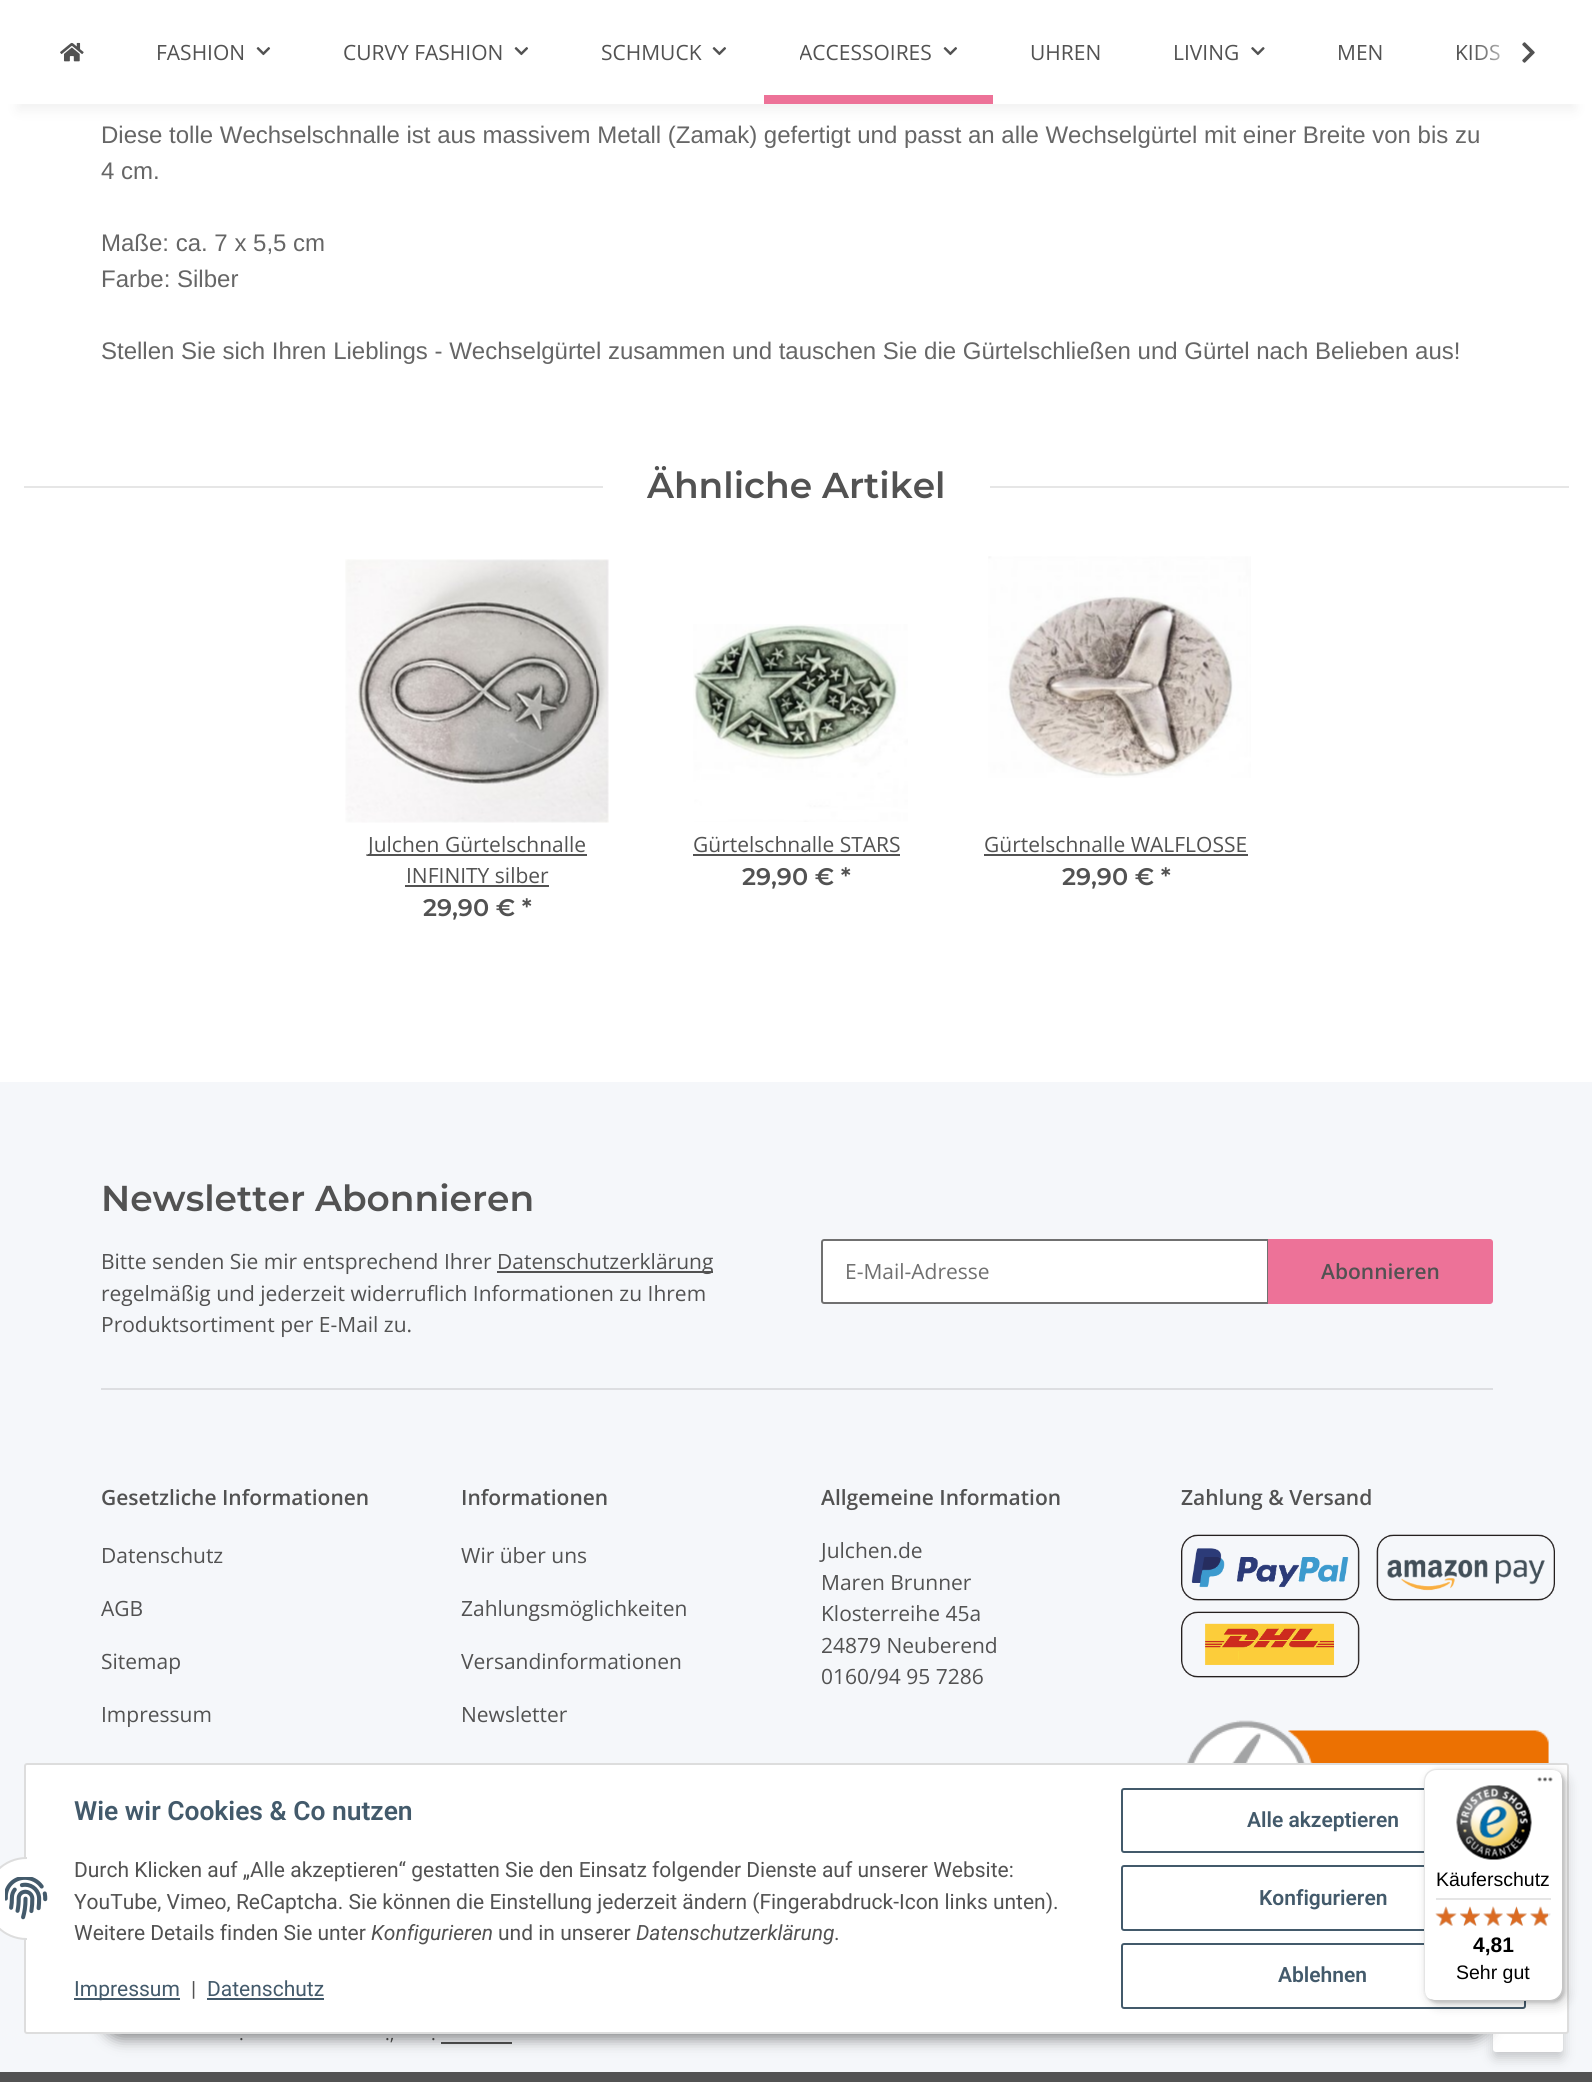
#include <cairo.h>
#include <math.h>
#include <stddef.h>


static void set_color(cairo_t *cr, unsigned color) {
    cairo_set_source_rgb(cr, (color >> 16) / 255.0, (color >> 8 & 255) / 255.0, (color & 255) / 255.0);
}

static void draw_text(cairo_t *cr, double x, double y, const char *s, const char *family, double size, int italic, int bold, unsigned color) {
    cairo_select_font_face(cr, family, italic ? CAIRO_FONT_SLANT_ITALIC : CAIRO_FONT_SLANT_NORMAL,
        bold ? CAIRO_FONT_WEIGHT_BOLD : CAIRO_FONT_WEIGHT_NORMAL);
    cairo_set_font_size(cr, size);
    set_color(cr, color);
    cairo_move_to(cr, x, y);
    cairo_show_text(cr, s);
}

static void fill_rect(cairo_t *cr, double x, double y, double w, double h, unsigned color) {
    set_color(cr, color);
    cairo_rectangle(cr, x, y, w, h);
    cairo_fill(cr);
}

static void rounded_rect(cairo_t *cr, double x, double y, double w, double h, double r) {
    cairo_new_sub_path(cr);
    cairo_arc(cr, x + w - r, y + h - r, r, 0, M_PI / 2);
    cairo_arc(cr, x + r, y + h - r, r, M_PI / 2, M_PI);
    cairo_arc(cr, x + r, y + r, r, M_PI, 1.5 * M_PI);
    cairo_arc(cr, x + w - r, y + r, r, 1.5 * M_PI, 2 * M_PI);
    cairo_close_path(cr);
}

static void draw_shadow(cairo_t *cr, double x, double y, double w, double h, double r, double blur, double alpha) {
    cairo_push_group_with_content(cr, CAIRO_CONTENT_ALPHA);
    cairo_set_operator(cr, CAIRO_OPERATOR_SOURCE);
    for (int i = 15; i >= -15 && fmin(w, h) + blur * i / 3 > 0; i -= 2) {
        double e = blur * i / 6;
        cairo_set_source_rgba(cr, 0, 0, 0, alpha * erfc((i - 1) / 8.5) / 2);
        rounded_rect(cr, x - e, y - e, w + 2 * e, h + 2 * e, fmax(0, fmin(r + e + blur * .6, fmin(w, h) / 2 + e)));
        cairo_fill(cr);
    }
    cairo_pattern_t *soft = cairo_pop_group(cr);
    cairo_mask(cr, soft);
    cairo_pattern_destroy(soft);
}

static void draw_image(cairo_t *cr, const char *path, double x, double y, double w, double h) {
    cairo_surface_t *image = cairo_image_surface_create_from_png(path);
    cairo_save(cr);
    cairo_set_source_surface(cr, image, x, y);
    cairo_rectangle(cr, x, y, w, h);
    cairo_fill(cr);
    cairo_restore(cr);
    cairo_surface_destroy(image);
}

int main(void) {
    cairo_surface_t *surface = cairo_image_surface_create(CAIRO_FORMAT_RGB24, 1592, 2082);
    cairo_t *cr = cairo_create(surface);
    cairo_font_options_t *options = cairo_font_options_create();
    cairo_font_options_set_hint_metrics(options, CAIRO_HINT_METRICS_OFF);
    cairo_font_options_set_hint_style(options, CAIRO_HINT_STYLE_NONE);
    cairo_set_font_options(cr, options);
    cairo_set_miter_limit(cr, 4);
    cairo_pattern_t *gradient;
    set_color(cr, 0xF5F7FA);
    cairo_paint(cr);
    fill_rect(cr, 0, 104, 1592, 978, 0xFFFFFF);
    set_color(cr, 0x000000);
    draw_shadow(cr, 18, 42, 1557, 68, 0, 7, 0.06);
    fill_rect(cr, 0, 0, 1592, 104, 0xFFFFFF);
    draw_image(cr, "assets/img1.png", 60, 42, 24, 20);
    draw_text(cr, 156, 60, "FASHION", "Open Sans", 21, 0, 0, 0x525252);
    draw_image(cr, "assets/img2.png", 256, 47, 15, 9);
    draw_text(cr, 343, 60, "CURVY FASHION", "Open Sans", 21, 0, 0, 0x525252);
    draw_image(cr, "assets/img2.png", 514, 47, 15, 9);
    draw_text(cr, 601, 60, "SCHMUCK", "Open Sans", 21, 0, 0, 0x525252);
    draw_image(cr, "assets/img2.png", 712, 47, 15, 9);
    cairo_save(cr);
    cairo_rectangle(cr, 800, 36, 132, 32);
    cairo_clip(cr);
    draw_text(cr, 799, 60, "ACCESSOIRES", "Open Sans", 21, 0, 0, 0x525252);
    cairo_restore(cr);
    draw_image(cr, "assets/img2.png", 943, 47, 15, 9);
    fill_rect(cr, 764, 95, 229, 9, 0xED7298);
    draw_text(cr, 1030, 60, "UHREN", "Open Sans", 21, 0, 0, 0x525252);
    draw_text(cr, 1173, 60, "LIVING", "Open Sans", 21, 0, 0, 0x525252);
    draw_image(cr, "assets/img3.png", 1251, 47, 14, 9);
    draw_text(cr, 1337, 60, "MEN", "Open Sans", 21, 0, 0, 0x525252);
    draw_text(cr, 1455, 60, "KIDS", "Open Sans", 21, 0, 0, 0x525252);
    gradient = cairo_pattern_create_linear(1473, 53, 1545, 53);
    cairo_pattern_add_color_stop_rgba(gradient, 0, 1, 1, 1, 0.01);
    cairo_pattern_add_color_stop_rgba(gradient, 0.7, 1, 1, 1, 1);
    cairo_set_source(cr, gradient);
    cairo_pattern_destroy(gradient);
    cairo_rectangle(cr, 1476, 44, 24, 17);
    cairo_fill(cr);
    draw_image(cr, "assets/img4.png", 1522, 42, 13, 21);
    draw_text(cr, 101, 143, "Diese tolle Wechselschnalle ist aus massivem Metall (Zamak) gefertigt und passt an alle Wechselgürtel mit einer Breite von bis zu", "Liberation Sans", 24, 0, 0, 0x666666);
    draw_text(cr, 101, 179, "4 cm.", "Liberation Sans", 24, 0, 0, 0x666666);
    draw_text(cr, 101, 251, "Maße: ca. 7 x 5,5 cm", "Liberation Sans", 24, 0, 0, 0x666666);
    draw_text(cr, 101, 287, "Farbe: Silber", "Liberation Sans", 24, 0, 0, 0x666666);
    draw_text(cr, 101, 359, "Stellen Sie sich Ihren Lieblings - Wechselgürtel zusammen und tauschen Sie die Gürtelschließen und Gürtel nach Belieben aus!", "Liberation Sans", 24, 0, 0, 0x666666);
    fill_rect(cr, 24, 486, 579, 2, 0xE6E6E6);
    draw_text(cr, 647, 498, "Ähnliche Artikel", "Montserrat SemiBold", 36, 0, 0, 0x525252);
    fill_rect(cr, 990, 486, 579, 2, 0xE6E6E6);
    draw_image(cr, "assets/img5.png", 345, 559, 264, 264);
    fill_rect(cr, 368, 854, 219, 2, 0x525252);
    draw_text(cr, 368, 852, "Julchen Gürtelschnalle", "Open Sans", 21, 0, 0, 0x525252);
    draw_text(cr, 406, 883, "INFINITY silber", "Open Sans", 21, 0, 0, 0x525252);
    fill_rect(cr, 405, 885, 144, 2, 0x525252);
    draw_text(cr, 423, 916, "29,90 € *", "Montserrat SemiBold", 24, 0, 0, 0x525252);
    draw_image(cr, "assets/img6.png", 693, 624, 215, 198);
    draw_text(cr, 693, 852, "Gürtelschnalle STARS", "Open Sans", 21, 0, 0, 0x525252);
    fill_rect(cr, 693, 854, 207, 2, 0x525252);
    draw_text(cr, 742, 885, "29,90 € *", "Montserrat SemiBold", 24, 0, 0, 0x525252);
    draw_image(cr, "assets/img7.png", 988, 556, 263, 222);
    draw_text(cr, 984, 852, "Gürtelschnalle WALFLOSSE", "Open Sans", 21, 0, 0, 0x525252);
    fill_rect(cr, 984, 854, 264, 2, 0x525252);
    draw_text(cr, 1062, 885, "29,90 € *", "Montserrat SemiBold", 24, 0, 0, 0x525252);
    draw_text(cr, 101, 1211, "Newsletter Abonnieren", "Montserrat SemiBold", 36, 0, 0, 0x525252);
    draw_text(cr, 101, 1269, "Bitte senden Sie mir entsprechend Ihrer", "Open Sans", 21, 0, 0, 0x525252);
    fill_rect(cr, 497, 1271, 216, 2, 0x525252);
    draw_text(cr, 497, 1269, "Datenschutzerklärung", "Open Sans", 21, 0, 0, 0x525252);
    draw_text(cr, 101, 1301, "regelmäßig und jederzeit widerruflich Informationen zu Ihrem", "Open Sans", 21, 0, 0, 0x525252);
    draw_text(cr, 101, 1332, "Produktsortiment per E-Mail zu.", "Open Sans", 21, 0, 0, 0x525252);
    fill_rect(cr, 823, 1241, 444, 61, 0xFFFFFF);
    cairo_new_path(cr);
    cairo_move_to(cr, 824, 1240);
    cairo_line_to(cr, 1268, 1240);
    cairo_line_to(cr, 1268, 1303);
    cairo_line_to(cr, 824, 1303);
    cairo_curve_to(cr, 823, 1303, 822, 1302, 822, 1301);
    cairo_line_to(cr, 822, 1242);
    cairo_curve_to(cr, 822, 1241, 823, 1240, 824, 1240);
    cairo_close_path(cr);
    set_color(cr, 0x707070);
    cairo_stroke(cr);
    draw_text(cr, 845, 1279, "E-Mail-Adresse", "Open Sans", 21, 0, 0, 0x707070);
    set_color(cr, 0xED7298);
    cairo_new_path(cr);
    cairo_move_to(cr, 1269, 1240);
    cairo_line_to(cr, 1490, 1240);
    cairo_curve_to(cr, 1491, 1240, 1492, 1241, 1492, 1242);
    cairo_line_to(cr, 1492, 1301);
    cairo_curve_to(cr, 1492, 1302, 1491, 1303, 1490, 1303);
    cairo_line_to(cr, 1269, 1303);
    cairo_close_path(cr);
    cairo_fill_preserve(cr);
    cairo_stroke(cr);
    draw_text(cr, 1321, 1279, "Abonnieren", "Open Sans SemiBold", 21, 0, 0, 0x525252);
    fill_rect(cr, 101, 1388, 1392, 2, 0xDDDEE1);
    draw_text(cr, 101, 1505, "Gesetzliche Informationen", "Open Sans SemiBold", 21, 0, 0, 0x525252);
    draw_text(cr, 101, 1563, "Datenschutz", "Open Sans", 21, 0, 0, 0x525252);
    draw_text(cr, 101, 1616, "AGB", "Open Sans", 21, 0, 0, 0x525252);
    draw_text(cr, 101, 1669, "Sitemap", "Open Sans", 21, 0, 0, 0x525252);
    draw_text(cr, 101, 1722, "Impressum", "Open Sans", 21, 0, 0, 0x525252);
    draw_text(cr, 461, 1505, "Informationen", "Open Sans SemiBold", 21, 0, 0, 0x525252);
    draw_text(cr, 461, 1563, "Wir über uns", "Open Sans", 21, 0, 0, 0x525252);
    draw_text(cr, 461, 1616, "Zahlungsmöglichkeiten", "Open Sans", 21, 0, 0, 0x525252);
    draw_text(cr, 461, 1669, "Versandinformationen", "Open Sans", 21, 0, 0, 0x525252);
    draw_text(cr, 461, 1722, "Newsletter", "Open Sans", 21, 0, 0, 0x525252);
    draw_text(cr, 821, 1505, "Allgemeine Information", "Open Sans SemiBold", 21, 0, 0, 0x525252);
    draw_text(cr, 821, 1558, "Julchen.de", "Open Sans", 21, 0, 0, 0x525252);
    draw_text(cr, 821, 1590, "Maren Brunner", "Open Sans", 21, 0, 0, 0x525252);
    draw_text(cr, 821, 1621, "Klosterreihe 45a", "Open Sans", 21, 0, 0, 0x525252);
    draw_text(cr, 821, 1653, "24879 Neuberend", "Open Sans", 21, 0, 0, 0x525252);
    draw_text(cr, 821, 1684, "0160/94 95 7286", "Open Sans", 21, 0, 0, 0x525252);
    draw_text(cr, 1181, 1505, "Zahlung & Versand", "Open Sans SemiBold", 21, 0, 0, 0x525252);
    draw_image(cr, "assets/img8.png", 1181, 1534, 374, 144);
    draw_image(cr, "assets/img9.png", 1187, 1720, 362, 43);
    draw_text(cr, 239, 2040, ".", "Open Sans", 18, 0, 0, 0x525252);
    draw_text(cr, 385, 2040, ".,", "Open Sans", 18, 0, 0, 0x525252);
    draw_text(cr, 431, 2040, ".", "Open Sans", 18, 0, 0, 0x525252);
    fill_rect(cr, 441, 2042, 71, 2, 0x525252);
    fill_rect(cr, 0, 2072, 1592, 10, 0x525252);
    set_color(cr, 0x000000);
    draw_shadow(cr, 1493, 1992, 70, 66, 3, 6, 0.2);
    set_color(cr, 0xFFFFFF);
    rounded_rect(cr, 1493, 1986, 70, 66, 3);
    cairo_fill(cr);
    set_color(cr, 0x000000);
    draw_shadow(cr, 102, 1991, 1389, 48, 24, 7.5, 0.45);
    set_color(cr, 0xFFFFFF);
    rounded_rect(cr, 25, 1764, 1543, 269, 2);
    cairo_fill_preserve(cr);
    set_color(cr, 0xDDDDDD);
    cairo_stroke(cr);
    set_color(cr, 0xFFFFFF);
    cairo_arc(cr, 26.5, 1898.5, 40.5, 0, 2 * M_PI);
    cairo_fill_preserve(cr);
    set_color(cr, 0xDDDDDD);
    cairo_stroke(cr);
    fill_rect(cr, 27, 1857, 41, 83, 0xFFFFFF);
    draw_image(cr, "assets/img10.png", 5, 1877, 43, 43);
    draw_text(cr, 74, 1820, "Wie wir Cookies & Co nutzen", "Roboto SemiBold", 26.4, 0, 0, 0x435A6B);
    draw_text(cr, 74, 1877, "Durch Klicken auf „Alle akzeptieren“ gestatten Sie den Einsatz folgender Dienste auf unserer Website:", "Roboto", 21, 0, 0, 0x525252);
    draw_text(cr, 74, 1909, "YouTube, Vimeo, ReCaptcha. Sie können die Einstellung jederzeit ändern (Fingerabdruck-Icon links unten).", "Roboto", 21, 0, 0, 0x525252);
    draw_text(cr, 74, 1940, "Weitere Details finden Sie unter", "Roboto", 21, 0, 0, 0x525252);
    draw_text(cr, 371, 1940, "Konfigurieren", "Roboto", 21, 1, 0, 0x525252);
    draw_text(cr, 498, 1940, "und in unserer", "Roboto", 21, 0, 0, 0x525252);
    draw_text(cr, 636, 1940, "Datenschutzerklärung", "Roboto", 21, 1, 0, 0x525252);
    draw_text(cr, 834, 1940, ".", "Roboto", 21, 0, 0, 0x525252);
    fill_rect(cr, 74, 1998, 106, 2, 0x435A6B);
    draw_text(cr, 74, 1996, "Impressum", "Roboto", 21, 0, 0, 0x435A6B);
    draw_text(cr, 191, 1996, "|", "Roboto", 21, 0, 0, 0x525252);
    draw_text(cr, 207, 1996, "Datenschutz", "Roboto", 21, 0, 0, 0x435A6B);
    fill_rect(cr, 207, 1998, 117, 2, 0x435A6B);
    rounded_rect(cr, 1122, 1789, 403, 63, 2);
    cairo_stroke(cr);
    draw_text(cr, 1247, 1827, "Alle akzeptieren", "Roboto SemiBold", 21, 0, 0, 0x435A6B);
    rounded_rect(cr, 1122, 1866, 403, 64, 2);
    cairo_stroke(cr);
    draw_text(cr, 1259, 1905, "Konfigurieren", "Roboto SemiBold", 21, 0, 0, 0x435A6B);
    rounded_rect(cr, 1122, 1944, 403, 64, 2);
    cairo_stroke(cr);
    draw_text(cr, 1278, 1982, "Ablehnen", "Roboto SemiBold", 21, 0, 0, 0x435A6B);
    set_color(cr, 0x000000);
    draw_shadow(cr, 1428, 1773, 140, 233, 12, 6, 0.15);
    draw_shadow(cr, 1425, 1770, 140, 233, 12, 1.5, 0.15);
    set_color(cr, 0xFFFFFF);
    rounded_rect(cr, 1424, 1769, 139, 232, 12);
    cairo_fill(cr);
    set_color(cr, 0xE5E5E5);
    cairo_new_path(cr);
    cairo_move_to(cr, 1437, 1770);
    cairo_line_to(cr, 1552, 1770);
    cairo_curve_to(cr, 1555, 1770, 1557, 1771, 1559, 1772);
    cairo_curve_to(cr, 1557, 1770, 1554, 1769, 1551, 1769);
    cairo_line_to(cr, 1436, 1769);
    cairo_curve_to(cr, 1429, 1769, 1424, 1774, 1424, 1781);
    cairo_line_to(cr, 1424, 1989);
    cairo_curve_to(cr, 1424, 1992, 1425, 1995, 1427, 1997);
    cairo_curve_to(cr, 1426, 1995, 1425, 1993, 1425, 1990);
    cairo_line_to(cr, 1425, 1782);
    cairo_curve_to(cr, 1425, 1775, 1430, 1770, 1437, 1770);
    cairo_close_path(cr);
    cairo_fill(cr);
    cairo_set_source_rgba(cr, 0, 0, 0, 0.2);
    cairo_new_path(cr);
    cairo_move_to(cr, 1430, 1999);
    cairo_curve_to(cr, 1431, 2000, 1434, 2001, 1436, 2001);
    cairo_line_to(cr, 1551, 2001);
    cairo_curve_to(cr, 1558, 2001, 1563, 1996, 1563, 1989);
    cairo_line_to(cr, 1563, 1781);
    cairo_curve_to(cr, 1563, 1779, 1562, 1776, 1561, 1775);
    cairo_line_to(cr, 1562, 1779);
    cairo_line_to(cr, 1562, 1988);
    cairo_curve_to(cr, 1562, 1994, 1556, 2000, 1550, 2000);
    cairo_line_to(cr, 1434, 2000);
    cairo_close_path(cr);
    cairo_fill(cr);
    cairo_set_source_rgba(cr, 0.196, 0.196, 0.196, 0.2);
    cairo_new_path(cr);
    cairo_move_to(cr, 1428, 1998);
    cairo_curve_to(cr, 1430, 2000, 1433, 2001, 1436, 2001);
    cairo_line_to(cr, 1551, 2001);
    cairo_curve_to(cr, 1558, 2001, 1563, 1996, 1563, 1989);
    cairo_line_to(cr, 1563, 1781);
    cairo_curve_to(cr, 1563, 1778, 1562, 1775, 1560, 1773);
    cairo_curve_to(cr, 1561, 1775, 1562, 1777, 1562, 1780);
    cairo_line_to(cr, 1562, 1988);
    cairo_curve_to(cr, 1562, 1995, 1557, 2000, 1550, 2000);
    cairo_line_to(cr, 1435, 2000);
    cairo_curve_to(cr, 1432, 2000, 1430, 1999, 1428, 1998);
    cairo_close_path(cr);
    cairo_fill(cr);
    cairo_set_source_rgba(cr, 1, 1, 1, 0.3);
    cairo_new_path(cr);
    cairo_move_to(cr, 1428, 1998);
    cairo_curve_to(cr, 1430, 2000, 1433, 2001, 1436, 2001);
    cairo_line_to(cr, 1551, 2001);
    cairo_curve_to(cr, 1558, 2001, 1563, 1996, 1563, 1989);
    cairo_line_to(cr, 1563, 1781);
    cairo_curve_to(cr, 1563, 1778, 1562, 1775, 1560, 1773);
    cairo_curve_to(cr, 1561, 1775, 1562, 1777, 1562, 1780);
    cairo_line_to(cr, 1562, 1988);
    cairo_curve_to(cr, 1562, 1995, 1557, 2000, 1550, 2000);
    cairo_line_to(cr, 1435, 2000);
    cairo_curve_to(cr, 1432, 2000, 1430, 1999, 1428, 1998);
    cairo_close_path(cr);
    cairo_fill(cr);
    draw_image(cr, "assets/img11.png", 1537, 1777, 16, 5);
    draw_image(cr, "assets/img12.png", 1456, 1785, 76, 75);
    draw_text(cr, 1436, 1886, "Käuferschutz", "Liberation Sans", 19.5, 0, 0, 0x000000);
    fill_rect(cr, 1436, 1898, 115, 2, 0xE5E5E5);
    draw_image(cr, "assets/img18.png", 1436, 1907, 20, 19);
    draw_image(cr, "assets/img13.png", 1435, 1906, 22, 20);
    draw_image(cr, "assets/img19.png", 1460, 1907, 20, 19);
    draw_image(cr, "assets/img14.png", 1460, 1906, 20, 20);
    draw_image(cr, "assets/img20.png", 1483, 1906, 20, 20);
    draw_image(cr, "assets/img15.png", 1483, 1906, 20, 20);
    draw_image(cr, "assets/img21.png", 1506, 1907, 21, 19);
    draw_image(cr, "assets/img16.png", 1506, 1906, 21, 20);
    draw_image(cr, "assets/img22.png", 1530, 1907, 21, 19);
    draw_image(cr, "assets/img17.png", 1530, 1906, 18, 20);
    draw_text(cr, 1473, 1952, "4,81", "Liberation Sans", 21, 0, 1, 0x000000);
    draw_text(cr, 1456, 1979, "Sehr gut", "Liberation Sans", 19.5, 0, 0, 0x000000);
    cairo_surface_write_to_png(surface, "output.png");
    cairo_font_options_destroy(options);
    cairo_destroy(cr);
    cairo_surface_destroy(surface);
    return 0;
}
